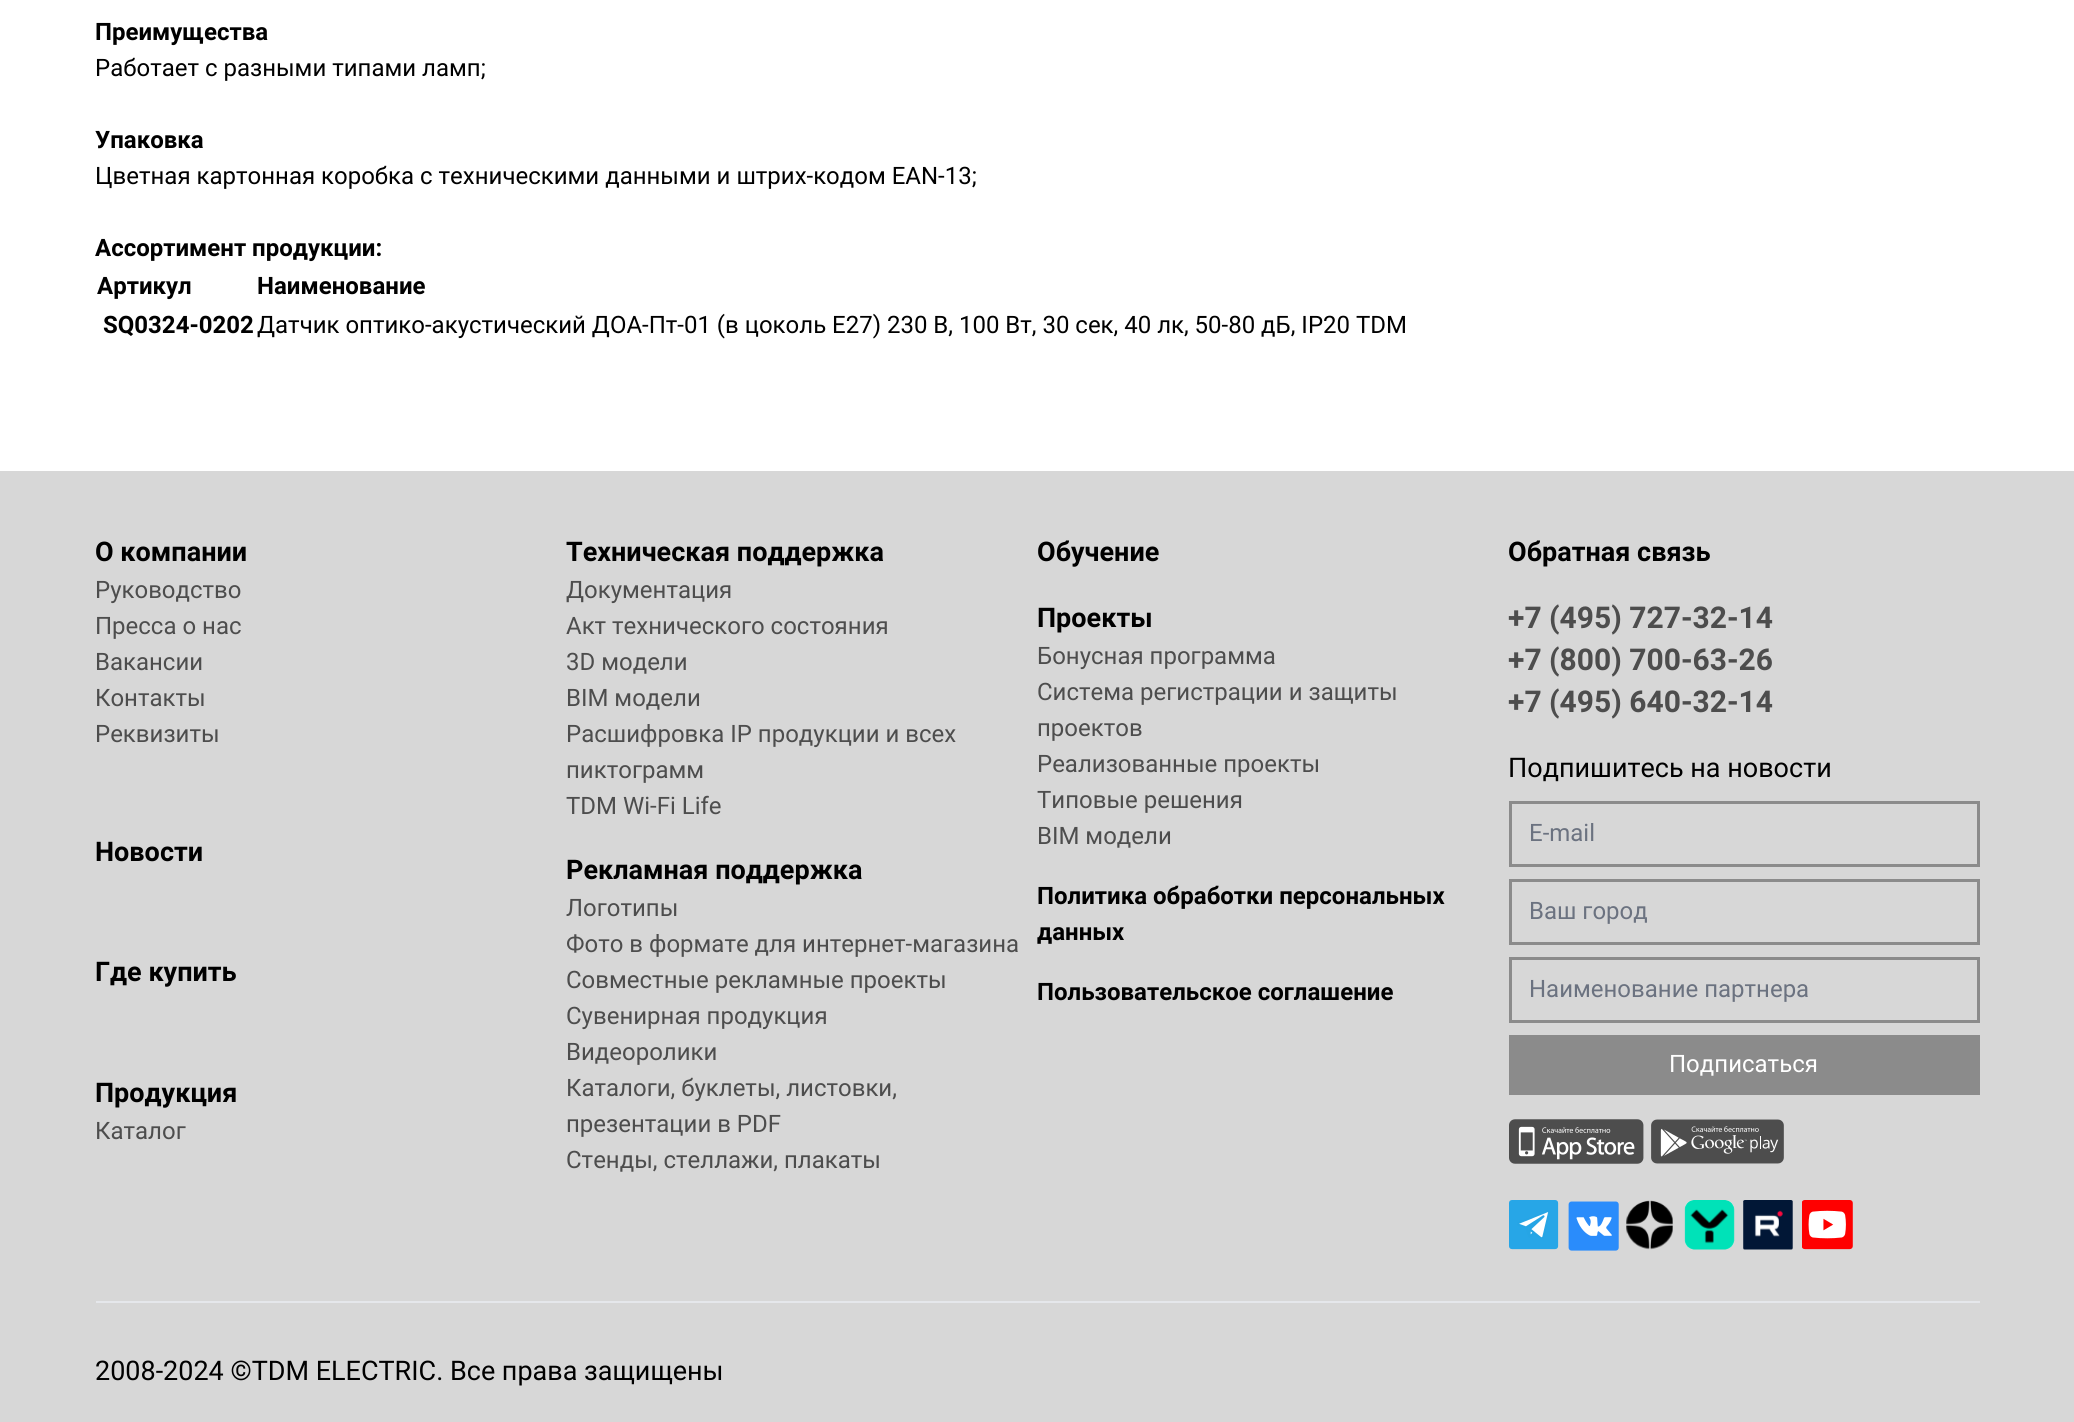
#include <cairo.h>
#include <math.h>
#include <stddef.h>


static void set_color(cairo_t *cr, unsigned color) {
    cairo_set_source_rgb(cr, (color >> 16) / 255.0, (color >> 8 & 255) / 255.0, (color & 255) / 255.0);
}

static void draw_text(cairo_t *cr, double x, double y, const char *s, const char *family, double size, int italic, int bold, unsigned color) {
    cairo_select_font_face(cr, family, italic ? CAIRO_FONT_SLANT_ITALIC : CAIRO_FONT_SLANT_NORMAL,
        bold ? CAIRO_FONT_WEIGHT_BOLD : CAIRO_FONT_WEIGHT_NORMAL);
    cairo_set_font_size(cr, size);
    set_color(cr, color);
    cairo_move_to(cr, x, y);
    cairo_show_text(cr, s);
}

static void fill_rect(cairo_t *cr, double x, double y, double w, double h, unsigned color) {
    set_color(cr, color);
    cairo_rectangle(cr, x, y, w, h);
    cairo_fill(cr);
}

static void draw_image(cairo_t *cr, const char *path, double x, double y, double w, double h) {
    cairo_surface_t *image = cairo_image_surface_create_from_png(path);
    cairo_save(cr);
    cairo_set_source_surface(cr, image, x, y);
    cairo_rectangle(cr, x, y, w, h);
    cairo_fill(cr);
    cairo_restore(cr);
    cairo_surface_destroy(image);
}

int main(void) {
    cairo_surface_t *surface = cairo_image_surface_create(CAIRO_FORMAT_RGB24, 2074, 1422);
    cairo_t *cr = cairo_create(surface);
    cairo_font_options_t *options = cairo_font_options_create();
    cairo_font_options_set_hint_metrics(options, CAIRO_HINT_METRICS_OFF);
    cairo_font_options_set_hint_style(options, CAIRO_HINT_STYLE_NONE);
    cairo_set_font_options(cr, options);
    cairo_set_miter_limit(cr, 4);
    set_color(cr, 0xFFFFFF);
    cairo_paint(cr);
    draw_text(cr, 95, 40, "Преимущества", "Roboto", 24, 0, 1, 0x000000);
    draw_text(cr, 95, 76, "Работает с разными типами ламп;", "Roboto", 24, 0, 0, 0x000000);
    draw_text(cr, 95, 148, "Упаковка", "Roboto", 24, 0, 1, 0x000000);
    draw_text(cr, 95, 184, "Цветная картонная коробка с техническими данными и штрих-кодом EAN-13;", "Roboto", 24, 0, 0, 0x000000);
    draw_text(cr, 95, 256, "Ассортимент продукции:", "Roboto", 24, 0, 1, 0x000000);
    draw_text(cr, 97, 294, "Артикул", "Roboto", 24, 0, 1, 0x000000);
    draw_text(cr, 257, 294, "Наименование", "Roboto", 24, 0, 1, 0x000000);
    draw_text(cr, 103, 333, "SQ0324-0202", "Roboto", 24, 0, 1, 0x000000);
    draw_text(cr, 257, 333, "Датчик оптико-акустический ДОА-Пт-01 (в цоколь Е27) 230 В, 100 Вт, 30 сек, 40 лк, 50-80 дБ, IP20 TDM", "Roboto", 24, 0, 0, 0x000000);
    fill_rect(cr, 0, 471, 2074, 951, 0xD7D7D7);
    draw_text(cr, 95, 561, "О компании", "Roboto", 27, 0, 1, 0x000000);
    draw_text(cr, 95, 598, "Руководство", "Roboto", 24, 0, 0, 0x4D4D4D);
    draw_text(cr, 95, 634, "Пресса о нас", "Roboto", 24, 0, 0, 0x4D4D4D);
    draw_text(cr, 95, 670, "Вакансии", "Roboto", 24, 0, 0, 0x4D4D4D);
    draw_text(cr, 95, 706, "Контакты", "Roboto", 24, 0, 0, 0x4D4D4D);
    draw_text(cr, 95, 742, "Реквизиты", "Roboto", 24, 0, 0, 0x4D4D4D);
    draw_text(cr, 95, 861, "Новости", "Roboto", 27, 0, 1, 0x000000);
    draw_text(cr, 95, 981, "Где купить", "Roboto", 27, 0, 1, 0x000000);
    draw_text(cr, 95, 1102, "Продукция", "Roboto", 27, 0, 1, 0x000000);
    draw_text(cr, 95, 1139, "Каталог", "Roboto", 24, 0, 0, 0x4D4D4D);
    draw_text(cr, 566, 561, "Техническая поддержка", "Roboto", 27, 0, 1, 0x000000);
    draw_text(cr, 566, 598, "Документация", "Roboto", 24, 0, 0, 0x4D4D4D);
    draw_text(cr, 566, 634, "Акт технического состояния", "Roboto", 24, 0, 0, 0x4D4D4D);
    draw_text(cr, 566, 670, "3D модели", "Roboto", 24, 0, 0, 0x4D4D4D);
    draw_text(cr, 566, 706, "BIM модели", "Roboto", 24, 0, 0, 0x4D4D4D);
    draw_text(cr, 566, 742, "Расшифровка IP продукции и всех", "Roboto", 24, 0, 0, 0x4D4D4D);
    draw_text(cr, 566, 778, "пиктограмм", "Roboto", 24, 0, 0, 0x4D4D4D);
    draw_text(cr, 566, 814, "TDM Wi-Fi Life", "Roboto", 24, 0, 0, 0x4D4D4D);
    draw_text(cr, 566, 879, "Рекламная поддержка", "Roboto", 27, 0, 1, 0x000000);
    draw_text(cr, 566, 916, "Логотипы", "Roboto", 24, 0, 0, 0x4D4D4D);
    draw_text(cr, 566, 952, "Фото в формате для интернет-магазина", "Roboto", 24, 0, 0, 0x4D4D4D);
    draw_text(cr, 566, 988, "Совместные рекламные проекты", "Roboto", 24, 0, 0, 0x4D4D4D);
    draw_text(cr, 566, 1024, "Сувенирная продукция", "Roboto", 24, 0, 0, 0x4D4D4D);
    draw_text(cr, 566, 1060, "Видеоролики", "Roboto", 24, 0, 0, 0x4D4D4D);
    draw_text(cr, 566, 1096, "Каталоги, буклеты, листовки,", "Roboto", 24, 0, 0, 0x4D4D4D);
    draw_text(cr, 566, 1132, "презентации в PDF", "Roboto", 24, 0, 0, 0x4D4D4D);
    draw_text(cr, 566, 1168, "Стенды, стеллажи, плакаты", "Roboto", 24, 0, 0, 0x4D4D4D);
    draw_text(cr, 1037, 561, "Обучение", "Roboto", 27, 0, 1, 0x000000);
    draw_text(cr, 1037, 627, "Проекты", "Roboto", 27, 0, 1, 0x000000);
    draw_text(cr, 1037, 664, "Бонусная программа", "Roboto", 24, 0, 0, 0x4D4D4D);
    draw_text(cr, 1037, 700, "Система регистрации и защиты", "Roboto", 24, 0, 0, 0x4D4D4D);
    draw_text(cr, 1037, 736, "проектов", "Roboto", 24, 0, 0, 0x4D4D4D);
    draw_text(cr, 1037, 772, "Реализованные проекты", "Roboto", 24, 0, 0, 0x4D4D4D);
    draw_text(cr, 1037, 808, "Типовые решения", "Roboto", 24, 0, 0, 0x4D4D4D);
    draw_text(cr, 1037, 844, "BIM модели", "Roboto", 24, 0, 0, 0x4D4D4D);
    draw_text(cr, 1037, 904, "Политика обработки персональных", "Roboto", 24, 0, 1, 0x000000);
    draw_text(cr, 1037, 940, "данных", "Roboto", 24, 0, 1, 0x000000);
    draw_text(cr, 1037, 1000, "Пользовательское соглашение", "Roboto", 24, 0, 1, 0x000000);
    draw_text(cr, 1508, 561, "Обратная связь", "Roboto", 27, 0, 1, 0x000000);
    draw_text(cr, 1508, 628, "+7 (495) 727-32-14", "Roboto", 30, 0, 1, 0x4D4D4D);
    draw_text(cr, 1508, 670, "+7 (800) 700-63-26", "Roboto", 30, 0, 1, 0x4D4D4D);
    draw_text(cr, 1508, 712, "+7 (495) 640-32-14", "Roboto", 30, 0, 1, 0x4D4D4D);
    draw_text(cr, 1508, 777, "Подпишитесь на новости", "Roboto", 27, 0, 0, 0x000000);
    cairo_rectangle(cr, 1510.5, 802.5, 468, 63);
    set_color(cr, 0x8B8B8B);
    cairo_set_line_width(cr, 3);
    cairo_stroke(cr);
    draw_text(cr, 1529, 841, "E-mail", "Roboto", 24, 0, 0, 0x6B7280);
    cairo_rectangle(cr, 1510.5, 880.5, 468, 63);
    set_color(cr, 0x8B8B8B);
    cairo_stroke(cr);
    draw_text(cr, 1529, 919, "Ваш город", "Roboto", 24, 0, 0, 0x6B7280);
    cairo_rectangle(cr, 1510.5, 958.5, 468, 63);
    set_color(cr, 0x8B8B8B);
    cairo_stroke(cr);
    draw_text(cr, 1529, 997, "Наименование партнера", "Roboto", 24, 0, 0, 0x6B7280);
    fill_rect(cr, 1509, 1035, 471, 60, 0x8B8B8B);
    draw_text(cr, 1669, 1072, "Подписаться", "Roboto", 24, 0, 0, 0xFFFFFF);
    draw_image(cr, "assets/img1.png", 1509, 1119, 135, 45);
    draw_image(cr, "assets/img2.png", 1651, 1119, 133, 45);
    draw_image(cr, "assets/img3.png", 1509, 1200, 50, 50);
    draw_image(cr, "assets/img4.png", 1568, 1201, 51, 50);
    draw_image(cr, "assets/img5.png", 1626, 1200, 47, 50);
    draw_image(cr, "assets/img6.png", 1684, 1200, 51, 50);
    draw_image(cr, "assets/img7.png", 1743, 1200, 50, 50);
    draw_image(cr, "assets/img8.png", 1802, 1200, 51, 50);
    fill_rect(cr, 96, 1301, 1884, 2, 0xE5E7EB);
    draw_text(cr, 95, 1380, "2008-2024 ©TDM ELECTRIC. Все права защищены", "Roboto", 27, 0, 0, 0x000000);
    cairo_surface_write_to_png(surface, "output.png");
    cairo_font_options_destroy(options);
    cairo_destroy(cr);
    cairo_surface_destroy(surface);
    return 0;
}
